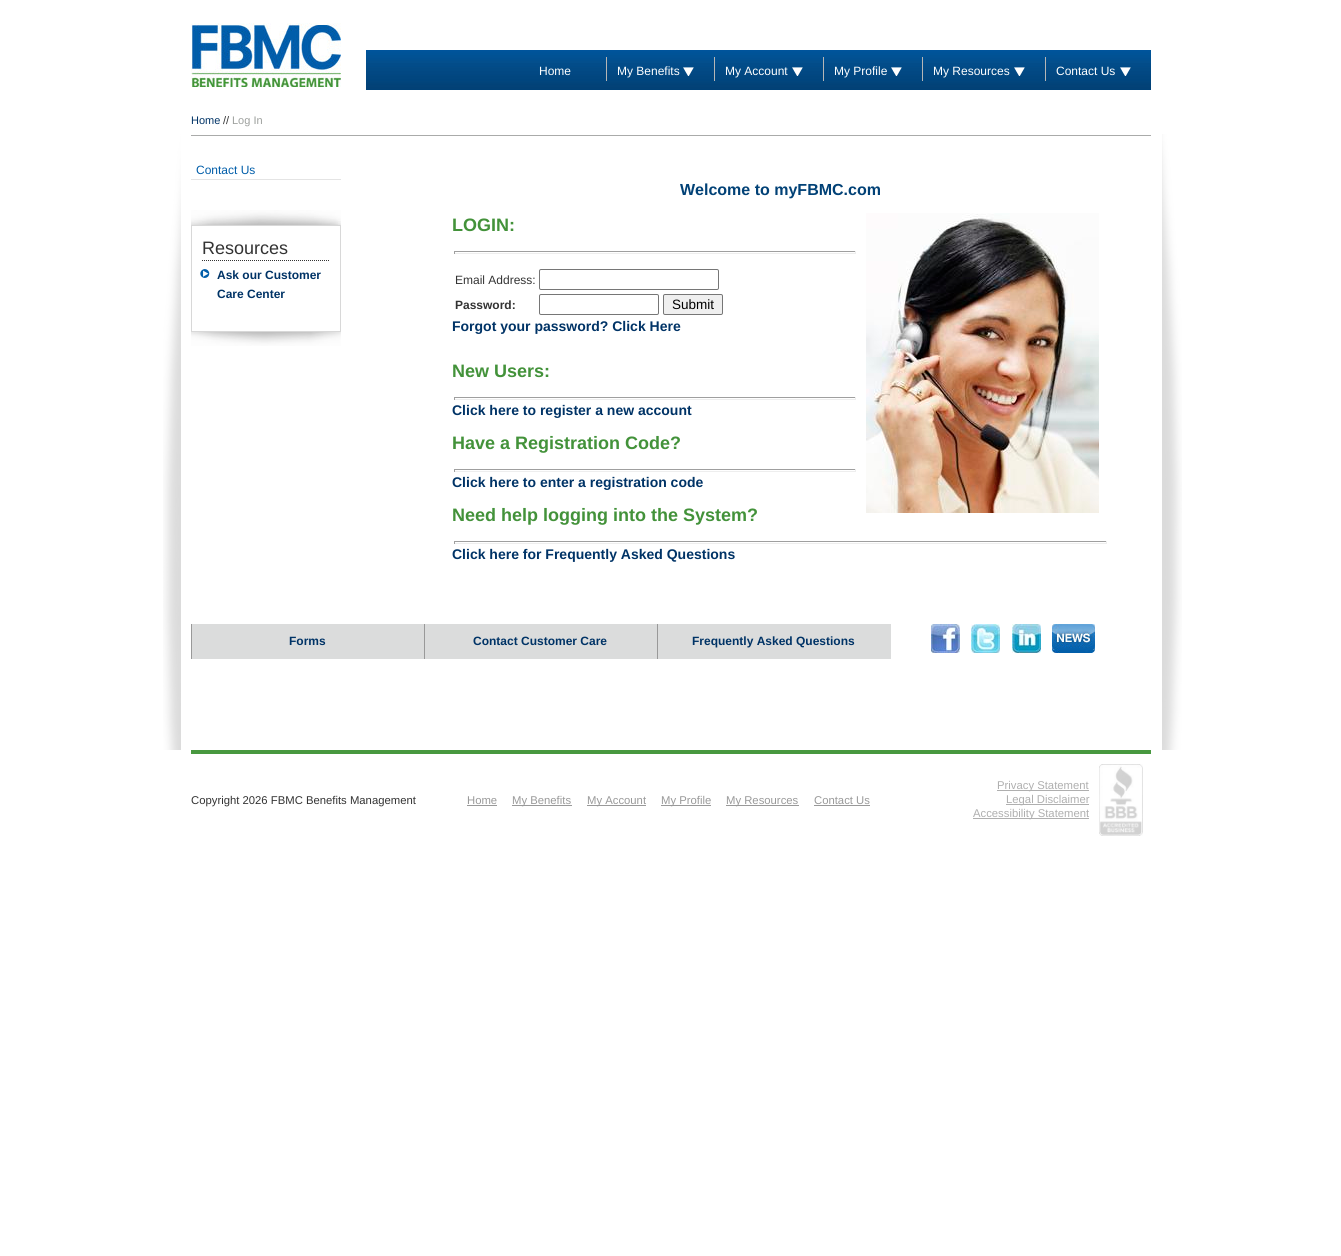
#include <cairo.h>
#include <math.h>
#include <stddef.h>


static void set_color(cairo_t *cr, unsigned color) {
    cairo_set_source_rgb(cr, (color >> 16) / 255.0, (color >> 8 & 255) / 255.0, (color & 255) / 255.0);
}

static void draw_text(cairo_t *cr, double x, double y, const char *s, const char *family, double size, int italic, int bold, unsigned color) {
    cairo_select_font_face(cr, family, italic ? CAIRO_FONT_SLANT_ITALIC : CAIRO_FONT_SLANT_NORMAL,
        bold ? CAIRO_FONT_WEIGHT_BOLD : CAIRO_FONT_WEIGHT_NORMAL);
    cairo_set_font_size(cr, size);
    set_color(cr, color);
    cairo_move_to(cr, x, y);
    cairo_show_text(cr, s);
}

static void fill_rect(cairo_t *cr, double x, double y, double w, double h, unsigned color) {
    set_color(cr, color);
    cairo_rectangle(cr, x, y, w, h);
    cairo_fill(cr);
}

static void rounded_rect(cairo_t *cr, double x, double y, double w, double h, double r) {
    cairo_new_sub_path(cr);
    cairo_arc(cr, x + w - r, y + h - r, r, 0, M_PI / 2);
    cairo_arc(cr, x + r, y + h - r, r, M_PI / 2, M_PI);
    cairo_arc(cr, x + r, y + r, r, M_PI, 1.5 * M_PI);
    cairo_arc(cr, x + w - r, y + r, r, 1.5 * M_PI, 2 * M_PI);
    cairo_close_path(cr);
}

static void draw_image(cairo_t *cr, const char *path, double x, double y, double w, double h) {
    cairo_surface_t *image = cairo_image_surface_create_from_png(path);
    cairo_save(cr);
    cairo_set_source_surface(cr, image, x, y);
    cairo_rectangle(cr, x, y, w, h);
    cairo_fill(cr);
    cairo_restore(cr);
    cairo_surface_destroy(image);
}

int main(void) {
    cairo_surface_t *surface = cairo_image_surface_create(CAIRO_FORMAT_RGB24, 1341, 1256);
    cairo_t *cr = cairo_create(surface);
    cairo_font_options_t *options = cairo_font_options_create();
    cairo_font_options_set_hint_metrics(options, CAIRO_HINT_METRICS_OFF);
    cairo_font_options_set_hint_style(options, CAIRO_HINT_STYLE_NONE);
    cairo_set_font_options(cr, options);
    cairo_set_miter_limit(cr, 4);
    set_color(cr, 0xFFFFFF);
    cairo_paint(cr);
    draw_image(cr, "assets/img1.png", 163, 134, 1019, 616);
    fill_rect(cr, 181, 134, 3, 616, 0xFFFFFF);
    draw_image(cr, "assets/img2.png", 191, 23, 150, 64);
    draw_image(cr, "assets/img3.png", 366, 50, 785, 40);
    draw_text(cr, 539, 75, "Home", "Liberation Sans", 12, 0, 0, 0xFFFFFF);
    draw_image(cr, "assets/img4.png", 683, 67, 11, 9);
    fill_rect(cr, 606, 57, 1, 24, 0xB6B6B6);
    draw_text(cr, 617, 75, "My Benefits", "Liberation Sans", 12, 0, 0, 0xFFFFFF);
    draw_image(cr, "assets/img4.png", 792, 67, 11, 9);
    fill_rect(cr, 714, 57, 1, 24, 0xB6B6B6);
    draw_text(cr, 725, 75, "My Account", "Liberation Sans", 12, 0, 0, 0xFFFFFF);
    draw_image(cr, "assets/img4.png", 891, 67, 11, 9);
    fill_rect(cr, 823, 57, 1, 24, 0xB6B6B6);
    draw_text(cr, 834, 75, "My Profile", "Liberation Sans", 12, 0, 0, 0xFFFFFF);
    draw_image(cr, "assets/img4.png", 1014, 67, 11, 9);
    fill_rect(cr, 922, 57, 1, 24, 0xB6B6B6);
    draw_text(cr, 933, 75, "My Resources", "Liberation Sans", 12, 0, 0, 0xFFFFFF);
    draw_image(cr, "assets/img4.png", 1120, 67, 11, 9);
    fill_rect(cr, 1045, 57, 1, 24, 0xB6B6B6);
    draw_text(cr, 1056, 75, "Contact Us", "Liberation Sans", 12, 0, 0, 0xFFFFFF);
    fill_rect(cr, 191, 135, 960, 1, 0xAAABAA);
    draw_text(cr, 191, 124, "Home", "Liberation Sans", 11, 0, 0, 0x003366);
    draw_text(cr, 223, 124, "//", "Liberation Sans", 11, 0, 0, 0x333333);
    draw_text(cr, 232, 124, "Log In", "Liberation Sans", 11, 0, 0, 0x9DA09D);
    fill_rect(cr, 191, 179, 150, 1, 0xE4E4E4);
    draw_text(cr, 196, 174, "Contact Us", "Liberation Sans", 12, 0, 0, 0x005DA9);
    draw_image(cr, "assets/img5.png", 191, 210, 150, 15);
    cairo_rectangle(cr, 191.5, 225.5, 149, 106);
    set_color(cr, 0xD8D8D8);
    cairo_set_line_width(cr, 1);
    cairo_stroke(cr);
    cairo_new_path(cr);
    cairo_move_to(cr, 202, 260.5);
    cairo_line_to(cr, 330, 260.5);
    set_color(cr, 0x333333);
    cairo_set_dash(cr, (double[]){1, 1}, 2, 0);
    cairo_stroke(cr);
    draw_text(cr, 202, 254, "Resources", "Liberation Sans", 18, 0, 0, 0x333333);
    draw_image(cr, "assets/img6.png", 200, 269, 10, 9);
    draw_text(cr, 217, 279, "Ask our Customer", "Liberation Sans", 12, 0, 1, 0x003366);
    draw_text(cr, 217, 298, "Care Center", "Liberation Sans", 12, 0, 1, 0x003366);
    draw_image(cr, "assets/img7.png", 191, 332, 150, 14);
    draw_text(cr, 680, 195, "Welcome to myFBMC.com", "Liberation Sans", 16, 0, 1, 0x014176);
    draw_text(cr, 452, 231, "LOGIN:", "Liberation Sans", 18, 0, 1, 0x43923A);
    draw_image(cr, "assets/img8.png", 866, 213, 233, 300);
    fill_rect(cr, 454, 251, 402, 1, 0x9F9F9F);
    fill_rect(cr, 855, 251, 1, 3, 0xEEEEEE);
    fill_rect(cr, 454, 253, 402, 1, 0xEEEEEE);
    fill_rect(cr, 454, 251, 1, 3, 0x9F9F9F);
    draw_text(cr, 455, 284, "Email Address:", "Liberation Sans", 12, 0, 0, 0x333333);
    rounded_rect(cr, 539.5, 269.5, 179, 20, 1.5);
    set_color(cr, 0x767676);
    cairo_set_dash(cr, NULL, 0, 0);
    cairo_stroke(cr);
    draw_text(cr, 455, 309, "Password:", "Liberation Sans", 12, 0, 1, 0x333333);
    rounded_rect(cr, 539.5, 294.5, 119, 20, 1.5);
    set_color(cr, 0x767676);
    cairo_stroke(cr);
    set_color(cr, 0xEFEFEF);
    rounded_rect(cr, 663.5, 294.5, 59, 20, 1.5);
    cairo_fill_preserve(cr);
    set_color(cr, 0x767676);
    cairo_stroke(cr);
    draw_text(cr, 672, 309, "Submit", "Liberation Sans", 13.5, 0, 0, 0x000000);
    draw_text(cr, 452, 331, "Forgot your password? Click Here", "Liberation Sans", 14, 0, 1, 0x003366);
    draw_text(cr, 452, 377, "New Users:", "Liberation Sans", 18, 0, 1, 0x43923A);
    fill_rect(cr, 454, 397, 402, 1, 0x9F9F9F);
    fill_rect(cr, 855, 397, 1, 3, 0xEEEEEE);
    fill_rect(cr, 454, 399, 402, 1, 0xEEEEEE);
    fill_rect(cr, 454, 397, 1, 3, 0x9F9F9F);
    draw_text(cr, 452, 415, "Click here to register a new account", "Liberation Sans", 14, 0, 1, 0x003366);
    draw_text(cr, 452, 449, "Have a Registration Code?", "Liberation Sans", 18, 0, 1, 0x43923A);
    fill_rect(cr, 454, 469, 402, 1, 0x9F9F9F);
    fill_rect(cr, 855, 469, 1, 3, 0xEEEEEE);
    fill_rect(cr, 454, 471, 402, 1, 0xEEEEEE);
    fill_rect(cr, 454, 469, 1, 3, 0x9F9F9F);
    draw_text(cr, 452, 487, "Click here to enter a registration code", "Liberation Sans", 14, 0, 1, 0x003366);
    draw_text(cr, 452, 521, "Need help logging into the System?", "Liberation Sans", 18, 0, 1, 0x43923A);
    fill_rect(cr, 454, 541, 653, 1, 0x9F9F9F);
    fill_rect(cr, 1106, 541, 1, 3, 0xEEEEEE);
    fill_rect(cr, 454, 543, 653, 1, 0xEEEEEE);
    fill_rect(cr, 454, 541, 1, 3, 0x9F9F9F);
    draw_text(cr, 452, 559, "Click here for Frequently Asked Questions", "Liberation Sans", 14, 0, 1, 0x003366);
    fill_rect(cr, 192, 624, 699, 35, 0xDBDCDC);
    fill_rect(cr, 191, 624, 1, 35, 0x999999);
    draw_text(cr, 289, 645, "Forms", "Liberation Sans", 12, 0, 1, 0x003366);
    fill_rect(cr, 424, 624, 1, 35, 0x999999);
    draw_text(cr, 473, 645, "Contact Customer Care", "Liberation Sans", 12, 0, 1, 0x003366);
    fill_rect(cr, 657, 624, 1, 35, 0x999999);
    draw_text(cr, 692, 645, "Frequently Asked Questions", "Liberation Sans", 12, 0, 1, 0x003366);
    draw_image(cr, "assets/img9.png", 931, 624, 29, 29);
    draw_image(cr, "assets/img10.png", 971, 624, 29, 29);
    draw_image(cr, "assets/img11.png", 1012, 624, 29, 29);
    draw_image(cr, "assets/img12.png", 1052, 624, 43, 29);
    fill_rect(cr, 191, 750, 960, 4, 0x48983F);
    draw_text(cr, 191, 804, "Copyright 2026 FBMC Benefits Management", "Liberation Sans", 11.3, 0, 0, 0x333333);
    draw_text(cr, 467, 804, "Home", "Liberation Sans", 11.3, 0, 0, 0x999999);
    fill_rect(cr, 467, 805, 30, 1, 0x999999);
    fill_rect(cr, 512, 805, 60, 1, 0x999999);
    draw_text(cr, 512, 804, "My Benefits", "Liberation Sans", 11.3, 0, 0, 0x999999);
    fill_rect(cr, 587, 805, 59, 1, 0x999999);
    draw_text(cr, 587, 804, "My Account", "Liberation Sans", 11.3, 0, 0, 0x999999);
    fill_rect(cr, 661, 805, 50, 1, 0x999999);
    draw_text(cr, 661, 804, "My Profile", "Liberation Sans", 11.3, 0, 0, 0x999999);
    fill_rect(cr, 726, 805, 73, 1, 0x999999);
    draw_text(cr, 726, 804, "My Resources", "Liberation Sans", 11.3, 0, 0, 0x999999);
    draw_text(cr, 814, 804, "Contact Us", "Liberation Sans", 11.3, 0, 0, 0x999999);
    fill_rect(cr, 814, 805, 56, 1, 0x999999);
    fill_rect(cr, 997, 790, 92, 1, 0xAFAFAF);
    draw_text(cr, 997, 789, "Privacy Statement", "Liberation Sans", 11.3, 0, 0, 0xAFAFAF);
    fill_rect(cr, 1006, 804, 83, 1, 0xAFAFAF);
    draw_text(cr, 1006, 803, "Legal Disclaimer", "Liberation Sans", 11.3, 0, 0, 0xAFAFAF);
    fill_rect(cr, 973, 818, 116, 1, 0xAFAFAF);
    draw_text(cr, 973, 817, "Accessibility Statement", "Liberation Sans", 11.3, 0, 0, 0xAFAFAF);
    draw_image(cr, "assets/img13.png", 1099, 764, 44, 72);
    cairo_surface_write_to_png(surface, "output.png");
    cairo_font_options_destroy(options);
    cairo_destroy(cr);
    cairo_surface_destroy(surface);
    return 0;
}
